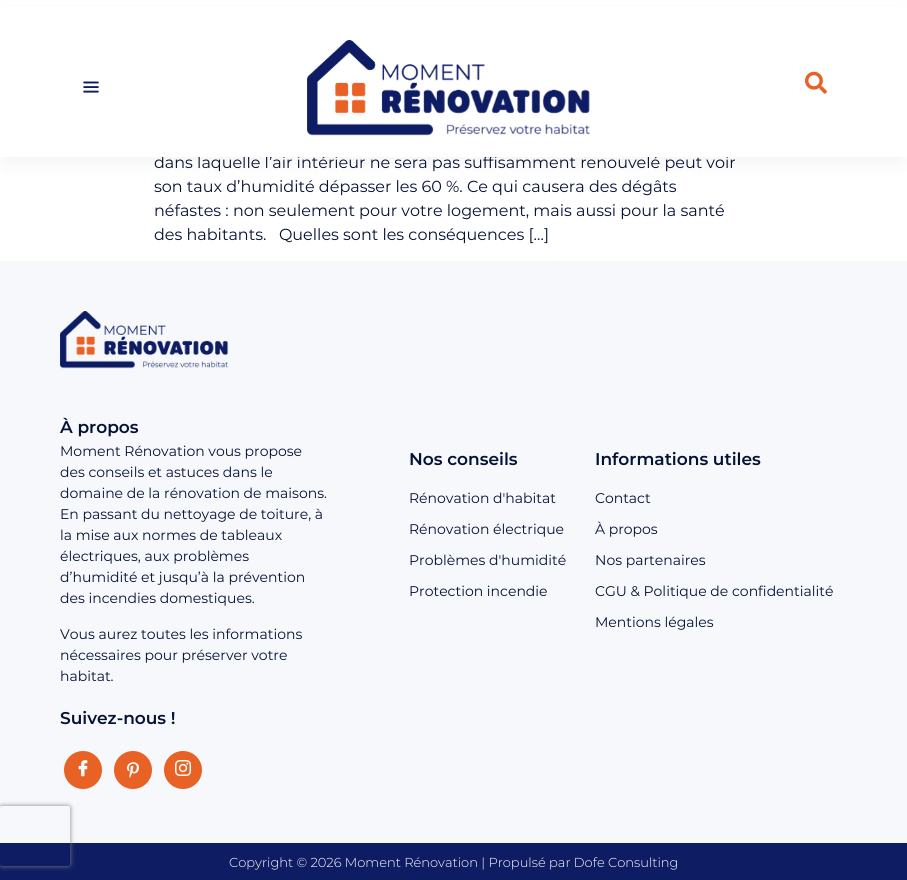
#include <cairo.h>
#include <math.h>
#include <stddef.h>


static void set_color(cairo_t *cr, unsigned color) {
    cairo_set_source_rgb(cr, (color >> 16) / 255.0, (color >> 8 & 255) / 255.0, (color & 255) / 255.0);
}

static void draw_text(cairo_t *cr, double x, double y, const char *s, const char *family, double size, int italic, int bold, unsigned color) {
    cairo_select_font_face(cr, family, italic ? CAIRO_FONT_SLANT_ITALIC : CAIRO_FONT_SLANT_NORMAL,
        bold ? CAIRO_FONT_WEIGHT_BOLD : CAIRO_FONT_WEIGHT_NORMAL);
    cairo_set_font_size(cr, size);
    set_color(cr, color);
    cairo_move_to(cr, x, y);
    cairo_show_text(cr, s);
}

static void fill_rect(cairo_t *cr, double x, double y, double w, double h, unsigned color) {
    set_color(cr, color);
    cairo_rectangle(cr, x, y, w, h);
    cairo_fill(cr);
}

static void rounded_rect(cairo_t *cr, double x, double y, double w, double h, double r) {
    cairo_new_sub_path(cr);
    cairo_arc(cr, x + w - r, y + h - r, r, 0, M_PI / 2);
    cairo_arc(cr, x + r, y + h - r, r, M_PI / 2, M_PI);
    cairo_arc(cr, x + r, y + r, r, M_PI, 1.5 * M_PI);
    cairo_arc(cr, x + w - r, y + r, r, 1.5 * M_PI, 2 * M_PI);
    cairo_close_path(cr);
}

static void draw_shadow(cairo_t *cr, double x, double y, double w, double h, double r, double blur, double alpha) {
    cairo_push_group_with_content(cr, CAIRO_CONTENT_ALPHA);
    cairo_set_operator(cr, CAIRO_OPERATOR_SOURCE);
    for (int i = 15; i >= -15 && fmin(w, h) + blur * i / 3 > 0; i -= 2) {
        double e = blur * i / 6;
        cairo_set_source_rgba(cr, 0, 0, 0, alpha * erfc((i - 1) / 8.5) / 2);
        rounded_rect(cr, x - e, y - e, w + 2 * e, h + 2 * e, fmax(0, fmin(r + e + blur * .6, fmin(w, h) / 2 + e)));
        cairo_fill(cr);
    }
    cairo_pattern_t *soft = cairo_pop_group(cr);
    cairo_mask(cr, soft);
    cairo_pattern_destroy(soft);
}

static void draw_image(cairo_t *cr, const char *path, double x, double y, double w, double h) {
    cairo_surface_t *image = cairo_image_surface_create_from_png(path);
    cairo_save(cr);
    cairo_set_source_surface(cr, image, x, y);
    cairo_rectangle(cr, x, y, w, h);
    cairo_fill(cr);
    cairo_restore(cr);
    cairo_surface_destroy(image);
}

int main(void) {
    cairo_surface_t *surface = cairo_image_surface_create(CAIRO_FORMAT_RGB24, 907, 880);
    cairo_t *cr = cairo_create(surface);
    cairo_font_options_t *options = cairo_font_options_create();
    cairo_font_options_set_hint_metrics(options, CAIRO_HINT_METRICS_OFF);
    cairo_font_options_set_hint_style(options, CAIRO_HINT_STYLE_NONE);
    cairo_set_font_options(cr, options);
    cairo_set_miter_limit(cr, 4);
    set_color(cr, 0xFFFFFF);
    cairo_paint(cr);
    fill_rect(cr, 0, 261, 907, 582, 0xF7F8FB);
    fill_rect(cr, 0, 843, 907, 37, 0x0E1C63);
    cairo_save(cr);
    cairo_set_fill_rule(cr, CAIRO_FILL_RULE_EVEN_ODD);
    cairo_new_path(cr);
    cairo_move_to(cr, 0, 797);
    cairo_line_to(cr, 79, 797);
    cairo_line_to(cr, 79, 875);
    cairo_line_to(cr, 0, 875);
    cairo_close_path(cr);
    cairo_move_to(cr, 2, 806);
    cairo_line_to(cr, 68, 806);
    cairo_curve_to(cr, 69, 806, 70, 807, 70, 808);
    cairo_line_to(cr, 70, 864);
    cairo_curve_to(cr, 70, 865, 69, 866, 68, 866);
    cairo_line_to(cr, 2, 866);
    cairo_curve_to(cr, 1, 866, 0, 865, 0, 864);
    cairo_line_to(cr, 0, 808);
    cairo_curve_to(cr, 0, 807, 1, 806, 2, 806);
    cairo_close_path(cr);
    cairo_clip(cr);
    set_color(cr, 0x808080);
    draw_shadow(cr, 0, 806, 70, 60, 2, 2.5, 1);
    cairo_restore(cr);
    set_color(cr, 0x000000);
    draw_shadow(cr, 5, 15, 897, 147, 0, 10, 0.05);
    draw_text(cr, 154, 168, "dans laquelle l’air intérieur ne sera pas suffisamment renouvelé peut voir", "Montserrat", 16, 0, 0, 0x041234);
    fill_rect(cr, 0, 7, 907, 150, 0xFFFFFF);
    draw_image(cr, "assets/img1.png", 83, 81, 16, 12);
    draw_image(cr, "assets/img2.png", 307, 40, 283, 96);
    draw_image(cr, "assets/img3.png", 805, 71, 22, 23);
    draw_text(cr, 154, 192, "son taux d’humidité dépasser les 60 %. Ce qui causera des dégâts", "Montserrat", 16, 0, 0, 0x041234);
    draw_text(cr, 154, 216, "néfastes : non seulement pour votre logement, mais aussi pour la santé", "Montserrat", 16, 0, 0, 0x041234);
    draw_text(cr, 154, 240, "des habitants.   Quelles sont les conséquences […]", "Montserrat", 16, 0, 0, 0x041234);
    draw_image(cr, "assets/img4.png", 60, 311, 169, 58);
    draw_text(cr, 60, 433, "À propos", "Montserrat SemiBold", 17, 0, 0, 0x041234);
    draw_text(cr, 60, 456, "Moment Rénovation vous propose", "Montserrat", 14, 0, 0, 0x041234);
    draw_text(cr, 60, 477, "des conseils et astuces dans le", "Montserrat", 14, 0, 0, 0x041234);
    draw_text(cr, 60, 498, "domaine de la rénovation de maisons.", "Montserrat", 14, 0, 0, 0x041234);
    draw_text(cr, 60, 519, "En passant du nettoyage de toiture, à", "Montserrat", 14, 0, 0, 0x041234);
    draw_text(cr, 60, 540, "la mise aux normes de tableaux", "Montserrat", 14, 0, 0, 0x041234);
    draw_text(cr, 60, 561, "électriques, aux problèmes", "Montserrat", 14, 0, 0, 0x041234);
    draw_text(cr, 60, 582, "d’humidité et jusqu’à la prévention", "Montserrat", 14, 0, 0, 0x041234);
    draw_text(cr, 60, 603, "des incendies domestiques.", "Montserrat", 14, 0, 0, 0x041234);
    draw_text(cr, 60, 639, "Vous aurez toutes les informations", "Montserrat", 14, 0, 0, 0x041234);
    draw_text(cr, 60, 660, "nécessaires pour préserver votre", "Montserrat", 14, 0, 0, 0x041234);
    draw_text(cr, 60, 681, "habitat.", "Montserrat", 14, 0, 0, 0x041234);
    draw_text(cr, 60, 724, "Suivez-nous !", "Montserrat SemiBold", 17, 0, 0, 0x041234);
    set_color(cr, 0xE86225);
    cairo_new_path(cr);
    cairo_arc(cr, 83, 770, 19, 0, 2 * M_PI);
    cairo_fill(cr);
    draw_image(cr, "assets/img5.png", 78, 760, 10, 17);
    cairo_arc(cr, 133, 770, 19, 0, 2 * M_PI);
    cairo_fill(cr);
    draw_image(cr, "assets/img6.png", 127, 762, 12, 16);
    cairo_arc(cr, 183, 770, 19, 0, 2 * M_PI);
    cairo_fill(cr);
    draw_image(cr, "assets/img7.png", 175, 760, 17, 16);
    draw_text(cr, 409, 465, "Nos conseils", "Montserrat SemiBold", 17, 0, 0, 0x041234);
    draw_text(cr, 409, 503, "Rénovation d'habitat", "Montserrat", 14, 0, 0, 0x041234);
    draw_text(cr, 409, 534, "Rénovation électrique", "Montserrat", 14, 0, 0, 0x041234);
    draw_text(cr, 409, 565, "Problèmes d'humidité", "Montserrat", 14, 0, 0, 0x041234);
    draw_text(cr, 409, 596, "Protection incendie", "Montserrat", 14, 0, 0, 0x041234);
    draw_text(cr, 595, 465, "Informations utiles", "Montserrat SemiBold", 17, 0, 0, 0x041234);
    draw_text(cr, 595, 503, "Contact", "Montserrat", 14, 0, 0, 0x041234);
    draw_text(cr, 595, 534, "À propos", "Montserrat", 14, 0, 0, 0x041234);
    draw_text(cr, 595, 565, "Nos partenaires", "Montserrat", 14, 0, 0, 0x041234);
    draw_text(cr, 595, 596, "CGU & Politique de confidentialité", "Montserrat", 14, 0, 0, 0x041234);
    draw_text(cr, 595, 627, "Mentions légales", "Montserrat", 14, 0, 0, 0x041234);
    draw_text(cr, 229, 867, "Copyright © 2026 Moment Rénovation | Propulsé par Dofe Consulting", "Montserrat Light", 13, 0, 0, 0xFFFFFF);
    cairo_surface_write_to_png(surface, "output.png");
    cairo_font_options_destroy(options);
    cairo_destroy(cr);
    cairo_surface_destroy(surface);
    return 0;
}
